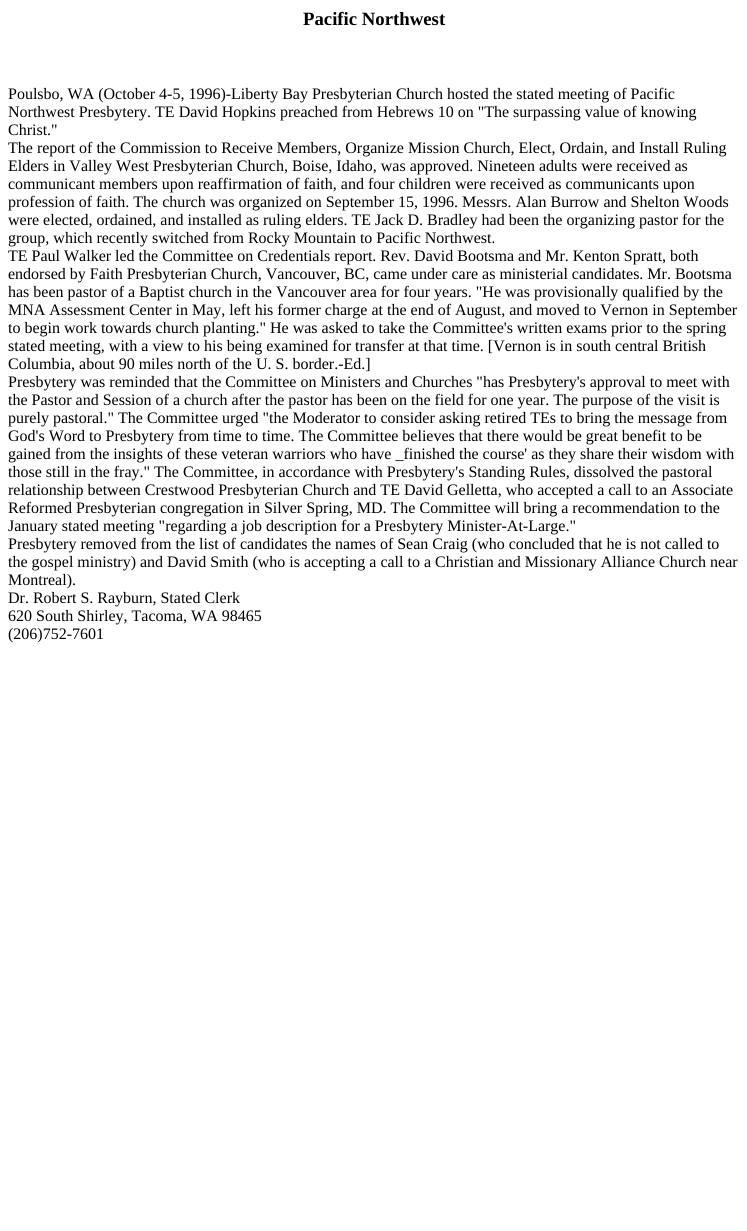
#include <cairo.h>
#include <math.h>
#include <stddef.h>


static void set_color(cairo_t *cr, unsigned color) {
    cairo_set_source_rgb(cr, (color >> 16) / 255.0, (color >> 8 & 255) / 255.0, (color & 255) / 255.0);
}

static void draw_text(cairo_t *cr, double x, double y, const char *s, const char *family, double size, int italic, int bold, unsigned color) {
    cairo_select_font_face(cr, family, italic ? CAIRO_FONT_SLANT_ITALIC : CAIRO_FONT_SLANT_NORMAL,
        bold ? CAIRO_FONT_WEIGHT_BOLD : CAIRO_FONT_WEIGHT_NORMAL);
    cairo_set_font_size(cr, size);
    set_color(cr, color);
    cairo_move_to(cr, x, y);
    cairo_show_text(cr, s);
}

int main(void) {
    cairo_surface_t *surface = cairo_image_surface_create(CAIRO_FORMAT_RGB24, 747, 1231);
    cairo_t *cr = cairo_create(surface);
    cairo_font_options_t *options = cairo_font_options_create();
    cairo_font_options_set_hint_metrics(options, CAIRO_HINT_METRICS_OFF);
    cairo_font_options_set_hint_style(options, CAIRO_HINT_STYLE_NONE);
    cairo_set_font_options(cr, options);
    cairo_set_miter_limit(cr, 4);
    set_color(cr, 0xFFFFFF);
    cairo_paint(cr);
    draw_text(cr, 303, 25, "Pacific Northwest", "Liberation Serif", 18.75, 0, 1, 0x000000);
    draw_text(cr, 8, 99, "Poulsbo, WA (October 4-5, 1996)-Liberty Bay Presbyterian Church hosted the stated meeting of Pacific", "Liberation Serif", 16, 0, 0, 0x000000);
    draw_text(cr, 8, 117, "Northwest Presbytery. TE David Hopkins preached from Hebrews 10 on \"The surpassing value of knowing", "Liberation Serif", 16, 0, 0, 0x000000);
    draw_text(cr, 8, 135, "Christ.\"", "Liberation Serif", 16, 0, 0, 0x000000);
    draw_text(cr, 8, 153, "The report of the Commission to Receive Members, Organize Mission Church, Elect, Ordain, and Install Ruling", "Liberation Serif", 16, 0, 0, 0x000000);
    draw_text(cr, 8, 171, "Elders in Valley West Presbyterian Church, Boise, Idaho, was approved. Nineteen adults were received as", "Liberation Serif", 16, 0, 0, 0x000000);
    draw_text(cr, 8, 189, "communicant members upon reaffirmation of faith, and four children were received as communicants upon", "Liberation Serif", 16, 0, 0, 0x000000);
    draw_text(cr, 8, 207, "profession of faith. The church was organized on September 15, 1996. Messrs. Alan Burrow and Shelton Woods", "Liberation Serif", 16, 0, 0, 0x000000);
    draw_text(cr, 8, 225, "were elected, ordained, and installed as ruling elders. TE Jack D. Bradley had been the organizing pastor for the", "Liberation Serif", 16, 0, 0, 0x000000);
    draw_text(cr, 8, 243, "group, which recently switched from Rocky Mountain to Pacific Northwest.", "Liberation Serif", 16, 0, 0, 0x000000);
    draw_text(cr, 8, 261, "TE Paul Walker led the Committee on Credentials report. Rev. David Bootsma and Mr. Kenton Spratt, both", "Liberation Serif", 16, 0, 0, 0x000000);
    draw_text(cr, 8, 279, "endorsed by Faith Presbyterian Church, Vancouver, BC, came under care as ministerial candidates. Mr. Bootsma", "Liberation Serif", 16, 0, 0, 0x000000);
    draw_text(cr, 8, 297, "has been pastor of a Baptist church in the Vancouver area for four years. \"He was provisionally qualified by the", "Liberation Serif", 16, 0, 0, 0x000000);
    draw_text(cr, 8, 315, "MNA Assessment Center in May, left his former charge at the end of August, and moved to Vernon in September", "Liberation Serif", 16, 0, 0, 0x000000);
    draw_text(cr, 8, 333, "to begin work towards church planting.\" He was asked to take the Committee's written exams prior to the spring", "Liberation Serif", 16, 0, 0, 0x000000);
    draw_text(cr, 8, 351, "stated meeting, with a view to his being examined for transfer at that time. [Vernon is in south central British", "Liberation Serif", 16, 0, 0, 0x000000);
    draw_text(cr, 8, 369, "Columbia, about 90 miles north of the U. S. border.-Ed.]", "Liberation Serif", 16, 0, 0, 0x000000);
    draw_text(cr, 8, 387, "Presbytery was reminded that the Committee on Ministers and Churches \"has Presbytery's approval to meet with", "Liberation Serif", 16, 0, 0, 0x000000);
    draw_text(cr, 8, 405, "the Pastor and Session of a church after the pastor has been on the field for one year. The purpose of the visit is", "Liberation Serif", 16, 0, 0, 0x000000);
    draw_text(cr, 8, 423, "purely pastoral.\" The Committee urged \"the Moderator to consider asking retired TEs to bring the message from", "Liberation Serif", 16, 0, 0, 0x000000);
    draw_text(cr, 8, 441, "God's Word to Presbytery from time to time. The Committee believes that there would be great benefit to be", "Liberation Serif", 16, 0, 0, 0x000000);
    draw_text(cr, 8, 459, "gained from the insights of these veteran warriors who have _finished the course' as they share their wisdom with", "Liberation Serif", 16, 0, 0, 0x000000);
    draw_text(cr, 8, 477, "those still in the fray.\" The Committee, in accordance with Presbytery's Standing Rules, dissolved the pastoral", "Liberation Serif", 16, 0, 0, 0x000000);
    draw_text(cr, 8, 495, "relationship between Crestwood Presbyterian Church and TE David Gelletta, who accepted a call to an Associate", "Liberation Serif", 16, 0, 0, 0x000000);
    draw_text(cr, 8, 513, "Reformed Presbyterian congregation in Silver Spring, MD. The Committee will bring a recommendation to the", "Liberation Serif", 16, 0, 0, 0x000000);
    draw_text(cr, 8, 531, "January stated meeting \"regarding a job description for a Presbytery Minister-At-Large.\"", "Liberation Serif", 16, 0, 0, 0x000000);
    draw_text(cr, 8, 549, "Presbytery removed from the list of candidates the names of Sean Craig (who concluded that he is not called to", "Liberation Serif", 16, 0, 0, 0x000000);
    draw_text(cr, 8, 567, "the gospel ministry) and David Smith (who is accepting a call to a Christian and Missionary Alliance Church near", "Liberation Serif", 16, 0, 0, 0x000000);
    draw_text(cr, 8, 585, "Montreal).", "Liberation Serif", 16, 0, 0, 0x000000);
    draw_text(cr, 8, 603, "Dr. Robert S. Rayburn, Stated Clerk", "Liberation Serif", 16, 0, 0, 0x000000);
    draw_text(cr, 8, 621, "620 South Shirley, Tacoma, WA 98465", "Liberation Serif", 16, 0, 0, 0x000000);
    draw_text(cr, 8, 639, "(206)752-7601", "Liberation Serif", 16, 0, 0, 0x000000);
    cairo_surface_write_to_png(surface, "output.png");
    cairo_font_options_destroy(options);
    cairo_destroy(cr);
    cairo_surface_destroy(surface);
    return 0;
}
